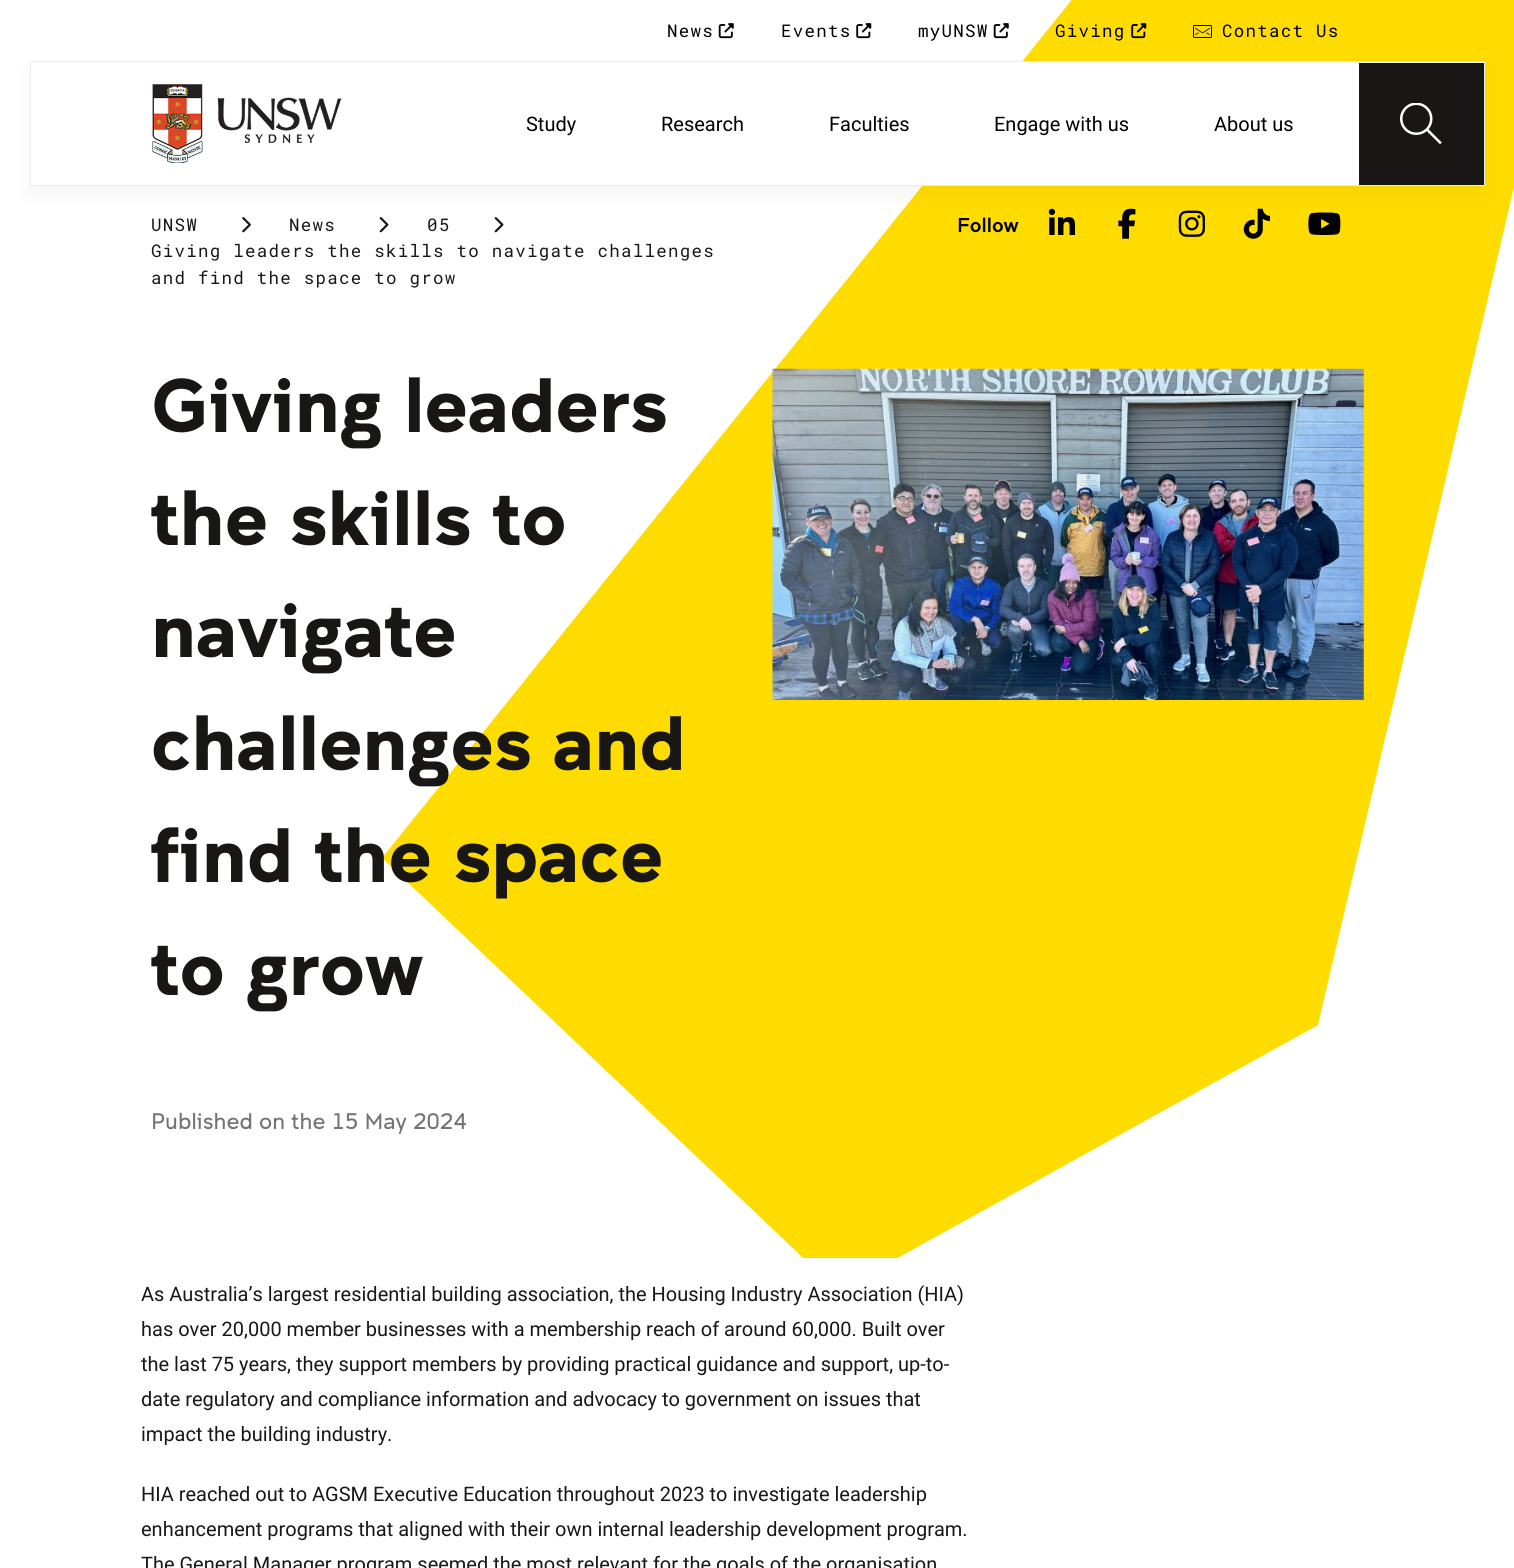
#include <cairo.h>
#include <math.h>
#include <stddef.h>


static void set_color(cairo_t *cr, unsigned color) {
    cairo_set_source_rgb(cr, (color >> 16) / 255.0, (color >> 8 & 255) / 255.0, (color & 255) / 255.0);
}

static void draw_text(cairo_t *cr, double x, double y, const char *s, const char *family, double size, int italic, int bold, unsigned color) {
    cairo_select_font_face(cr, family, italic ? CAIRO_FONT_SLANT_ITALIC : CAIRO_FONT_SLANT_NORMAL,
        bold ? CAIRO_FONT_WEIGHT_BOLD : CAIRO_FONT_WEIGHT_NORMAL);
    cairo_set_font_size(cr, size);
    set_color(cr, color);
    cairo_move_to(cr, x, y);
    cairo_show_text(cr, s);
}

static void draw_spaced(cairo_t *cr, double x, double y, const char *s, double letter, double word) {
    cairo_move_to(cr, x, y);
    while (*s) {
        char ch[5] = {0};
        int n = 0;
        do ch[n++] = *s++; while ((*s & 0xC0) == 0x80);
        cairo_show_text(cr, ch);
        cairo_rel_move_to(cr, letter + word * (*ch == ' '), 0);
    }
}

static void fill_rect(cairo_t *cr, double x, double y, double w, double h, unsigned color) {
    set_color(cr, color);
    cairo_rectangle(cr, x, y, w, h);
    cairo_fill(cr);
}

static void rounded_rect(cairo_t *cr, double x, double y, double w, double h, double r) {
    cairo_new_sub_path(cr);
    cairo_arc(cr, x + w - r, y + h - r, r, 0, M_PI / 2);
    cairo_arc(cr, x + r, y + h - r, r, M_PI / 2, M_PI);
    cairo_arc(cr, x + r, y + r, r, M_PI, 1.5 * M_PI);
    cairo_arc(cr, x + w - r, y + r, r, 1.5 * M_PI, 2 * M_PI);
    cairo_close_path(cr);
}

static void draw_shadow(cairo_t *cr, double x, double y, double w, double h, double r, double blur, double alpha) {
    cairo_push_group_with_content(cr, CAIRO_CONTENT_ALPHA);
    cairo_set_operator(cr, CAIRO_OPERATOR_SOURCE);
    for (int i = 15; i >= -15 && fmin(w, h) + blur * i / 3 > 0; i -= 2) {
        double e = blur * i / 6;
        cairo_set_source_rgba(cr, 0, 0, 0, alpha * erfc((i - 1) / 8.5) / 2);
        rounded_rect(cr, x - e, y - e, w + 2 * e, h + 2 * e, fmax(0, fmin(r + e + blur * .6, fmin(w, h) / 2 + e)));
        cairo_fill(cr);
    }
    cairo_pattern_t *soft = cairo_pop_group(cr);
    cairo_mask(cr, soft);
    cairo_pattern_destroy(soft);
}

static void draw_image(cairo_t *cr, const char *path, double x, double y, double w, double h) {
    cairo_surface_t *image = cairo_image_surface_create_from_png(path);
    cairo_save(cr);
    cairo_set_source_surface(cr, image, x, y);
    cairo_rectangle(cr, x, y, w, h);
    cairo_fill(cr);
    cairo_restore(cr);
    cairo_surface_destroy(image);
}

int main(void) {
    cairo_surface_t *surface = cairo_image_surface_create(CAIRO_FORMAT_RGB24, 1514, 1568);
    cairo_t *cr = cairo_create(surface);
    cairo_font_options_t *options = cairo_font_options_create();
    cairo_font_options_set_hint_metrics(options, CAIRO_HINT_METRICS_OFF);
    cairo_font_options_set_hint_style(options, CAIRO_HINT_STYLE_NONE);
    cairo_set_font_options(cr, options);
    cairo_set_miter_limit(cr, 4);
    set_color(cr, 0xFFFFFF);
    cairo_paint(cr);
    cairo_save(cr);
    cairo_rectangle(cr, 173, 0, 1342, 1258);
    cairo_clip(cr);
    set_color(cr, 0xFFDC00);
    cairo_new_path(cr);
    cairo_move_to(cr, 382, 858);
    cairo_line_to(cr, 838, 1291);
    cairo_line_to(cr, 1318, 1025);
    cairo_line_to(cr, 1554, 16);
    cairo_line_to(cr, 1295, -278);
    cairo_close_path(cr);
    cairo_fill(cr);
    cairo_restore(cr);
    cairo_select_font_face(cr, "Roboto Mono", CAIRO_FONT_SLANT_NORMAL, CAIRO_FONT_WEIGHT_NORMAL);
    cairo_set_font_size(cr, 17.5);
    set_color(cr, 0x000000);
    draw_spaced(cr, 667, 37, "News", 1.25, 0);
    draw_image(cr, "assets/img1.png", 718, 23, 16, 16);
    draw_spaced(cr, 781, 37, "Events", 1.25, 0);
    draw_image(cr, "assets/img2.png", 856, 23, 16, 16);
    draw_image(cr, "assets/img7.png", 242, 217, 9, 16);
    draw_image(cr, "assets/img8.png", 379, 217, 10, 16);
    draw_image(cr, "assets/img8.png", 494, 217, 10, 16);
    draw_image(cr, "assets/img9.png", 1048, 208, 27, 27);
    draw_image(cr, "assets/img10.png", 1118, 208, 18, 31);
    draw_image(cr, "assets/img11.png", 1178, 210, 27, 27);
    draw_image(cr, "assets/img12.png", 1243, 208, 27, 31);
    draw_image(cr, "assets/img13.png", 1308, 212, 33, 23);
    set_color(cr, 0x000000);
    draw_shadow(cr, 30, 71, 1455, 125, 0, 10, 0.04);
    set_color(cr, 0x000000);
    draw_spaced(cr, 918, 37, "myUNSW", 1.25, 0);
    draw_image(cr, "assets/img1.png", 993, 23, 16, 16);
    draw_spaced(cr, 1055, 37, "Giving", 1.25, 0);
    draw_image(cr, "assets/img3.png", 1131, 23, 16, 16);
    draw_image(cr, "assets/img4.png", 1193, 25, 19, 13);
    draw_spaced(cr, 1222, 37, "Contact Us", 1.25, 0);
    set_color(cr, 0xFFFFFF);
    cairo_rectangle(cr, 30.5, 61.5, 1454, 124);
    cairo_fill_preserve(cr);
    set_color(cr, 0xEBEBEB);
    cairo_set_line_width(cr, 1);
    cairo_stroke(cr);
    draw_image(cr, "assets/img5.png", 152, 84, 190, 79);
    draw_text(cr, 526, 131, "Study", "Roboto", 20, 0, 0, 0x000000);
    draw_text(cr, 661, 131, "Research", "Roboto", 20, 0, 0, 0x000000);
    draw_text(cr, 829, 131, "Faculties", "Roboto", 20, 0, 0, 0x000000);
    draw_text(cr, 994, 131, "Engage with us", "Roboto", 20, 0, 0, 0x000000);
    draw_text(cr, 1214, 131, "About us", "Roboto", 20, 0, 0, 0x000000);
    fill_rect(cr, 1359, 63, 125, 122, 0x181716);
    draw_image(cr, "assets/img6.png", 1400, 103, 42, 42);
    cairo_select_font_face(cr, "Roboto Mono", CAIRO_FONT_SLANT_NORMAL, CAIRO_FONT_WEIGHT_NORMAL);
    cairo_set_font_size(cr, 17.5);
    draw_spaced(cr, 151, 231, "UNSW", 1.25, 0);
    draw_spaced(cr, 289, 231, "News", 1.25, 0);
    draw_spaced(cr, 427, 231, "05", 1.25, 0);
    draw_spaced(cr, 151, 257, "Giving leaders the skills to navigate challenges", 1.25, 0);
    draw_spaced(cr, 151, 284, "and find the space to grow", 1.25, 0);
    draw_text(cr, 957, 232, "Follow", "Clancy", 20, 0, 0, 0x000000);
    draw_text(cr, 151, 432, "Giving leaders", "Clancy", 76.25, 0, 1, 0x181716);
    draw_text(cr, 151, 545, "the skills to", "Clancy", 76.25, 0, 1, 0x181716);
    draw_text(cr, 151, 657, "navigate", "Clancy", 76.25, 0, 1, 0x181716);
    draw_text(cr, 151, 770, "challenges and", "Clancy", 76.25, 0, 1, 0x181716);
    draw_text(cr, 151, 882, "find the space", "Clancy", 76.25, 0, 1, 0x181716);
    draw_text(cr, 151, 995, "to grow", "Clancy", 76.25, 0, 1, 0x181716);
    draw_text(cr, 151, 1129, "Published on the 15 May 2024", "Clancy Light", 22.5, 0, 0, 0x737373);
    draw_image(cr, "assets/img14.png", 772, 368, 592, 332);
    draw_text(cr, 141, 1301, "As Australia’s largest residential building association, the Housing Industry Association (HIA)", "Roboto", 20, 0, 0, 0x181716);
    draw_text(cr, 141, 1336, "has over 20,000 member businesses with a membership reach of around 60,000. Built over", "Roboto", 20, 0, 0, 0x181716);
    draw_text(cr, 141, 1371, "the last 75 years, they support members by providing practical guidance and support, up-to-", "Roboto", 20, 0, 0, 0x181716);
    draw_text(cr, 141, 1406, "date regulatory and compliance information and advocacy to government on issues that", "Roboto", 20, 0, 0, 0x181716);
    draw_text(cr, 141, 1441, "impact the building industry.", "Roboto", 20, 0, 0, 0x181716);
    draw_text(cr, 141, 1501, "HIA reached out to AGSM Executive Education throughout 2023 to investigate leadership", "Roboto", 20, 0, 0, 0x181716);
    draw_text(cr, 141, 1536, "enhancement programs that aligned with their own internal leadership development program.", "Roboto", 20, 0, 0, 0x181716);
    draw_text(cr, 141, 1571, "The General Manager program seemed the most relevant for the goals of the organisation", "Roboto", 20, 0, 0, 0x181716);
    cairo_surface_write_to_png(surface, "output.png");
    cairo_font_options_destroy(options);
    cairo_destroy(cr);
    cairo_surface_destroy(surface);
    return 0;
}
